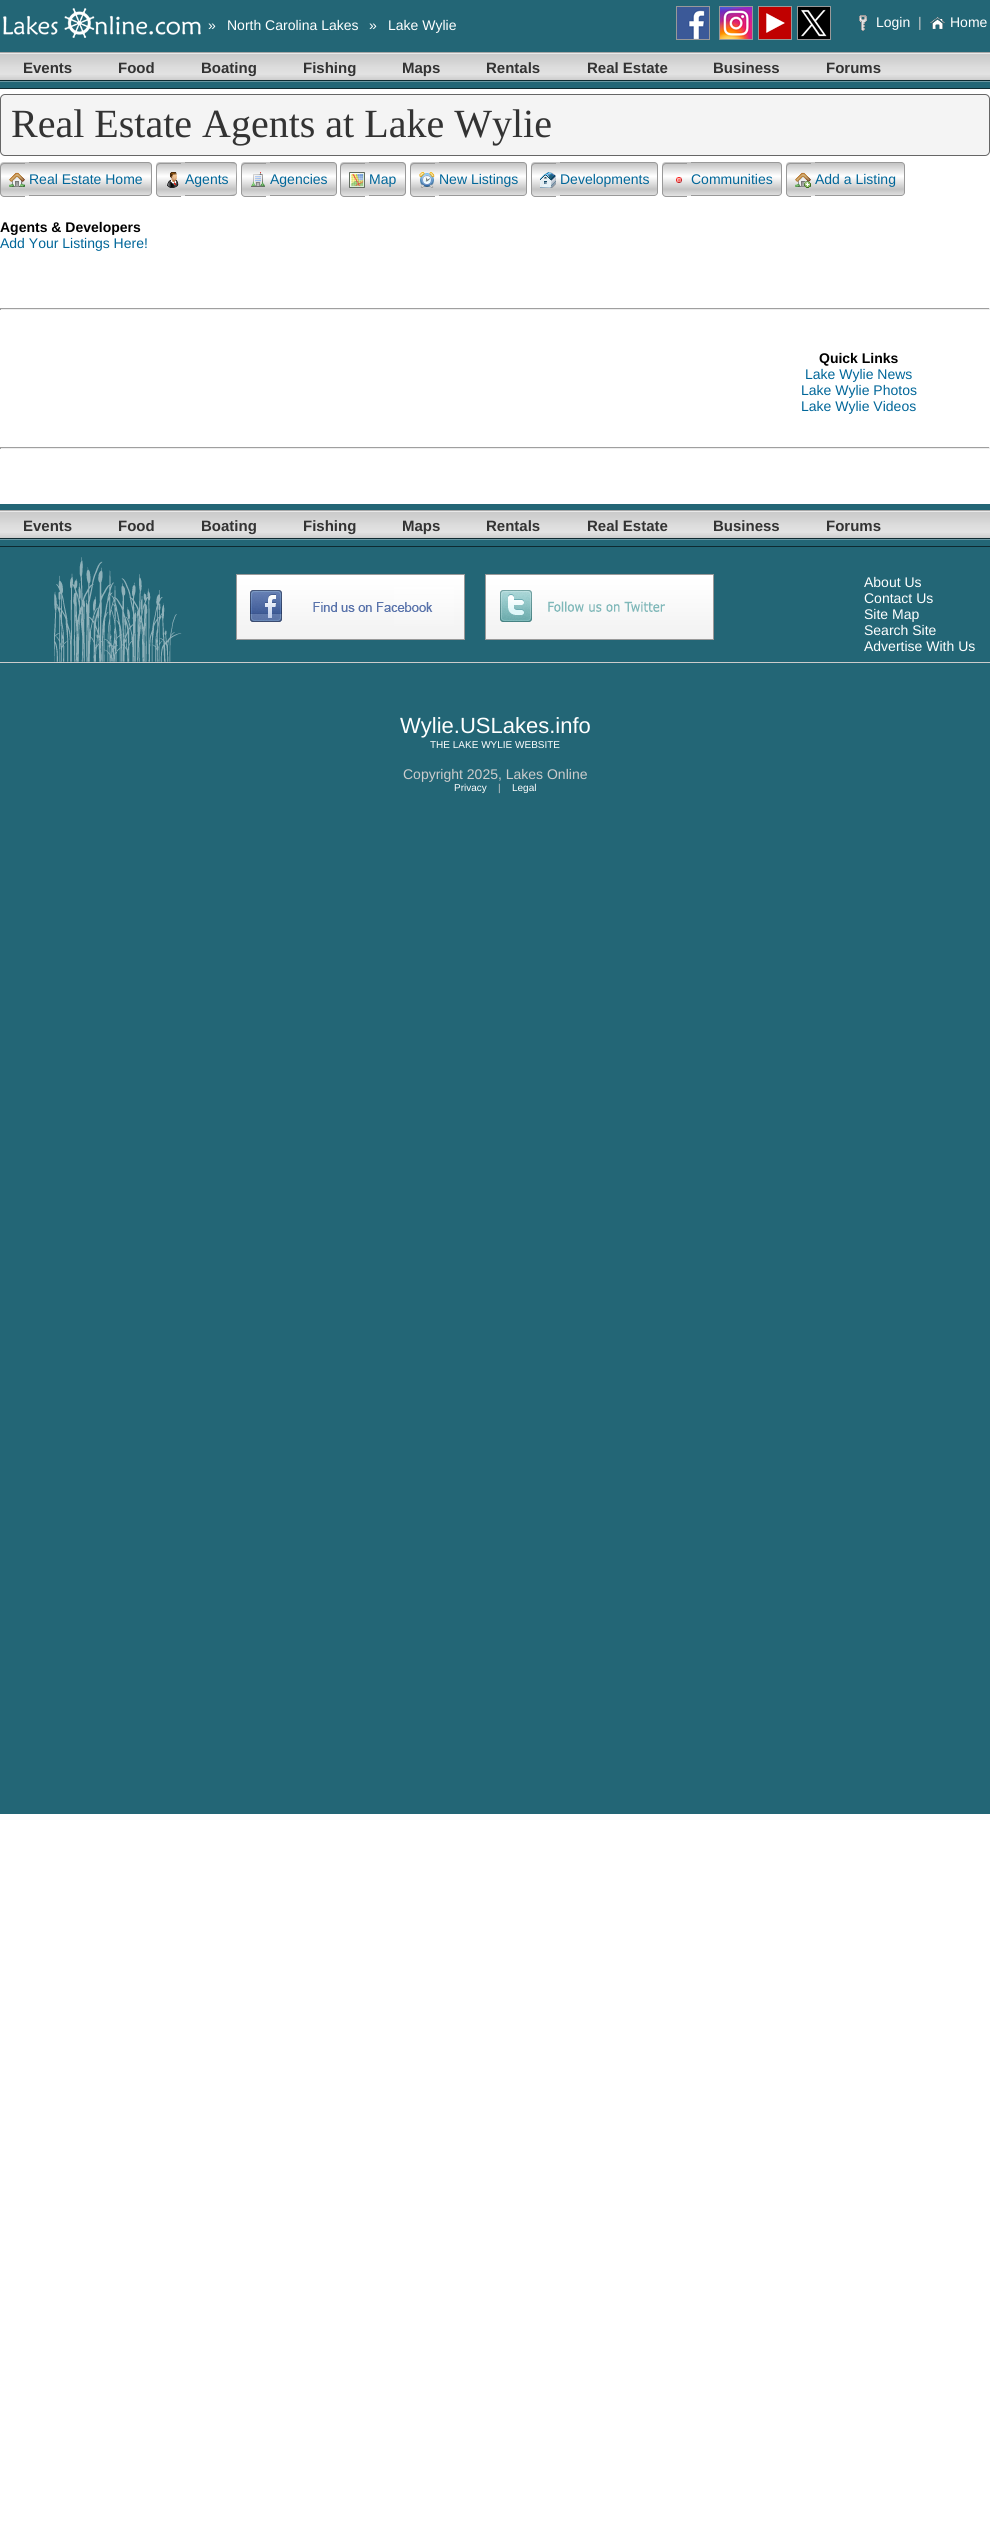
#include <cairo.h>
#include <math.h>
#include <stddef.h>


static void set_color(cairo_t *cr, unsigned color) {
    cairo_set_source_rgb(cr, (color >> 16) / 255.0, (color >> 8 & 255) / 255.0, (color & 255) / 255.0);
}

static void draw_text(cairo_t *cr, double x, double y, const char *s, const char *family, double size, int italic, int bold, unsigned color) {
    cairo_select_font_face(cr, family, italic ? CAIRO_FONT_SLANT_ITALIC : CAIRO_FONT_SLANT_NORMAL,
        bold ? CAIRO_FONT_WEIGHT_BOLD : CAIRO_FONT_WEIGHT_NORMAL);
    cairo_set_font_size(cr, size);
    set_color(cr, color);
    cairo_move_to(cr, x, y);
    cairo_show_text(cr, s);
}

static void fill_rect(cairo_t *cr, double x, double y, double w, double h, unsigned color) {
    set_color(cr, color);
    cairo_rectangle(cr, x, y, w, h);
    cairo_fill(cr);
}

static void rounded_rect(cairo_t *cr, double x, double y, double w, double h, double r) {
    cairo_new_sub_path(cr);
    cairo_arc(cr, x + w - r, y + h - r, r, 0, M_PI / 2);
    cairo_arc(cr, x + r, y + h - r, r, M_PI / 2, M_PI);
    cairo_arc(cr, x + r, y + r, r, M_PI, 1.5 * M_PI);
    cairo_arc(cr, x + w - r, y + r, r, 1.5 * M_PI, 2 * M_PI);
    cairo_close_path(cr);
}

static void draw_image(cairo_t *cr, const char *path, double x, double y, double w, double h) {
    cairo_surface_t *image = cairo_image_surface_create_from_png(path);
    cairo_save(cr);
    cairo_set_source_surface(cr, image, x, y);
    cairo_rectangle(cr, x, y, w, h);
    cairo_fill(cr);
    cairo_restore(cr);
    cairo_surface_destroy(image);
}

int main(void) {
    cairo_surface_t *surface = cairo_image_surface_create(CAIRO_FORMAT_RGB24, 990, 2533);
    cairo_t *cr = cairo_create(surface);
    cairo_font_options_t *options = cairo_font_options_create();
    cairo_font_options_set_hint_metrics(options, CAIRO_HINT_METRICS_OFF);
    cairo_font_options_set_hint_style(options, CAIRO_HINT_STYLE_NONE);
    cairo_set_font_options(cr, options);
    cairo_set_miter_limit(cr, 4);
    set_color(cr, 0xFFFFFF);
    cairo_paint(cr);
    fill_rect(cr, 0, 0, 990, 89, 0x236676);
    draw_image(cr, "assets/img1.png", 3, 8, 198, 30);
    draw_text(cr, 208, 30, "»", "Liberation Sans", 14, 0, 0, 0xFFFFFF);
    draw_text(cr, 227, 30, "North Carolina Lakes", "Liberation Sans", 14, 0, 0, 0xFFFFFF);
    draw_text(cr, 369, 30, "»", "Liberation Sans", 14, 0, 0, 0xFFFFFF);
    draw_text(cr, 388, 30, "Lake Wylie", "Liberation Sans", 14, 0, 0, 0xFFFFFF);
    cairo_rectangle(cr, 676.5, 6.5, 33, 33);
    set_color(cr, 0x999999);
    cairo_set_line_width(cr, 1);
    cairo_stroke(cr);
    cairo_rectangle(cr, 719.5, 6.5, 33, 33);
    cairo_stroke(cr);
    cairo_rectangle(cr, 758.5, 6.5, 33, 33);
    cairo_stroke(cr);
    cairo_rectangle(cr, 797.5, 6.5, 33, 33);
    cairo_stroke(cr);
    draw_image(cr, "assets/img2.png", 677, 7, 32, 32);
    draw_image(cr, "assets/img3.png", 720, 7, 32, 32);
    draw_image(cr, "assets/img4.png", 759, 7, 32, 32);
    draw_image(cr, "assets/img5.png", 798, 7, 32, 32);
    draw_image(cr, "assets/img6.png", 859, 15, 8, 16);
    draw_text(cr, 876, 27, "Login", "Liberation Sans", 14, 0, 0, 0xFFFFFF);
    draw_text(cr, 918, 27, "|", "Liberation Sans", 14, 0, 0, 0xCCCCCC);
    draw_image(cr, "assets/img7.png", 930, 17, 15, 12);
    draw_text(cr, 950, 27, "Home", "Liberation Sans", 14, 0, 0, 0xFFFFFF);
    draw_image(cr, "assets/img8.png", 0, 52, 990, 37);
    draw_text(cr, 23, 73, "Events", "Liberation Sans", 15, 0, 1, 0x333333);
    draw_text(cr, 118, 73, "Food", "Liberation Sans", 15, 0, 1, 0x333333);
    draw_text(cr, 201, 73, "Boating", "Liberation Sans", 15, 0, 1, 0x333333);
    draw_text(cr, 303, 73, "Fishing", "Liberation Sans", 15, 0, 1, 0x333333);
    draw_text(cr, 402, 73, "Maps", "Liberation Sans", 15, 0, 1, 0x333333);
    draw_text(cr, 486, 73, "Rentals", "Liberation Sans", 15, 0, 1, 0x333333);
    draw_text(cr, 587, 73, "Real Estate", "Liberation Sans", 15, 0, 1, 0x333333);
    draw_text(cr, 713, 73, "Business", "Liberation Sans", 15, 0, 1, 0x333333);
    draw_text(cr, 826, 73, "Forums", "Liberation Sans", 15, 0, 1, 0x333333);
    set_color(cr, 0xF4F4F4);
    rounded_rect(cr, 0.5, 94.5, 989, 61, 4.5);
    cairo_fill_preserve(cr);
    set_color(cr, 0x666666);
    cairo_stroke(cr);
    draw_text(cr, 11, 137, "Real Estate Agents at Lake Wylie", "Liberation Serif", 40, 0, 0, 0x333333);
    draw_image(cr, "assets/img9.png", 0, 162, 152, 34);
    draw_image(cr, "assets/img10.png", 156, 162, 81, 34);
    draw_image(cr, "assets/img11.png", 241, 162, 96, 34);
    draw_image(cr, "assets/img12.png", 340, 162, 66, 34);
    draw_image(cr, "assets/img13.png", 410, 162, 117, 34);
    draw_image(cr, "assets/img14.png", 531, 162, 127, 34);
    draw_image(cr, "assets/img15.png", 662, 162, 120, 34);
    draw_image(cr, "assets/img16.png", 786, 162, 119, 34);
    set_color(cr, 0x999999);
    cairo_set_fill_rule(cr, CAIRO_FILL_RULE_EVEN_ODD);
    cairo_new_path(cr);
    cairo_move_to(cr, 4, 163);
    cairo_line_to(cr, 25, 163);
    cairo_line_to(cr, 25, 197);
    cairo_line_to(cr, 4, 197);
    cairo_curve_to(cr, 2, 197, 0, 195, 0, 193);
    cairo_line_to(cr, 0, 167);
    cairo_curve_to(cr, 0, 165, 2, 163, 4, 163);
    cairo_close_path(cr);
    cairo_move_to(cr, 4, 164);
    cairo_line_to(cr, 25, 164);
    cairo_line_to(cr, 25, 196);
    cairo_line_to(cr, 4, 196);
    cairo_curve_to(cr, 2.5, 196, 1, 194.5, 1, 193);
    cairo_line_to(cr, 1, 167);
    cairo_curve_to(cr, 1, 165.5, 2.5, 164, 4, 164);
    cairo_close_path(cr);
    cairo_fill(cr);
    draw_image(cr, "assets/img17.png", 9, 172, 16, 15);
    cairo_new_path(cr);
    cairo_move_to(cr, 29, 162);
    cairo_line_to(cr, 148, 162);
    cairo_curve_to(cr, 150, 162, 152, 164, 152, 166);
    cairo_line_to(cr, 152, 192);
    cairo_curve_to(cr, 152, 194, 150, 196, 148, 196);
    cairo_line_to(cr, 29, 196);
    cairo_close_path(cr);
    cairo_move_to(cr, 29, 163);
    cairo_line_to(cr, 148, 163);
    cairo_curve_to(cr, 150, 163, 151, 164, 151, 166);
    cairo_line_to(cr, 151, 192);
    cairo_curve_to(cr, 151, 194, 150, 195, 148, 195);
    cairo_line_to(cr, 29, 195);
    cairo_close_path(cr);
    cairo_fill(cr);
    draw_text(cr, 29, 184, "Real Estate Home", "Liberation Sans", 14, 0, 0, 0x006699);
    set_color(cr, 0x999999);
    cairo_new_path(cr);
    cairo_move_to(cr, 160, 163);
    cairo_line_to(cr, 181, 163);
    cairo_line_to(cr, 181, 197);
    cairo_line_to(cr, 160, 197);
    cairo_curve_to(cr, 158, 197, 156, 195, 156, 193);
    cairo_line_to(cr, 156, 167);
    cairo_curve_to(cr, 156, 165, 158, 163, 160, 163);
    cairo_close_path(cr);
    cairo_move_to(cr, 160, 164);
    cairo_line_to(cr, 181, 164);
    cairo_line_to(cr, 181, 196);
    cairo_line_to(cr, 160, 196);
    cairo_curve_to(cr, 158.5, 196, 157, 194.5, 157, 193);
    cairo_line_to(cr, 157, 167);
    cairo_curve_to(cr, 157, 165.5, 158.5, 164, 160, 164);
    cairo_close_path(cr);
    cairo_fill(cr);
    draw_image(cr, "assets/img18.png", 165, 172, 14, 16);
    cairo_new_path(cr);
    cairo_move_to(cr, 185, 162);
    cairo_line_to(cr, 233, 162);
    cairo_curve_to(cr, 235, 162, 237, 164, 237, 166);
    cairo_line_to(cr, 237, 192);
    cairo_curve_to(cr, 237, 194, 235, 196, 233, 196);
    cairo_line_to(cr, 185, 196);
    cairo_close_path(cr);
    cairo_move_to(cr, 185, 163);
    cairo_line_to(cr, 225, 163);
    cairo_curve_to(cr, 240, 163, 236, 163, 236, 179);
    cairo_curve_to(cr, 236, 195, 240, 195, 225, 195);
    cairo_line_to(cr, 185, 195);
    cairo_close_path(cr);
    cairo_fill(cr);
    draw_text(cr, 185, 184, "Agents", "Liberation Sans", 14, 0, 0, 0x006699);
    set_color(cr, 0x999999);
    cairo_new_path(cr);
    cairo_move_to(cr, 245, 163);
    cairo_line_to(cr, 266, 163);
    cairo_line_to(cr, 266, 197);
    cairo_line_to(cr, 245, 197);
    cairo_curve_to(cr, 243, 197, 241, 195, 241, 193);
    cairo_line_to(cr, 241, 167);
    cairo_curve_to(cr, 241, 165, 243, 163, 245, 163);
    cairo_close_path(cr);
    cairo_move_to(cr, 245, 164);
    cairo_line_to(cr, 266, 164);
    cairo_line_to(cr, 266, 196);
    cairo_line_to(cr, 245, 196);
    cairo_curve_to(cr, 243.5, 196, 242, 194.5, 242, 193);
    cairo_line_to(cr, 242, 167);
    cairo_curve_to(cr, 242, 165.5, 243.5, 164, 245, 164);
    cairo_close_path(cr);
    cairo_fill(cr);
    draw_image(cr, "assets/img19.png", 251, 172, 14, 15);
    cairo_new_path(cr);
    cairo_move_to(cr, 270, 162);
    cairo_line_to(cr, 333, 162);
    cairo_curve_to(cr, 335, 162, 337, 164, 337, 166);
    cairo_line_to(cr, 337, 192);
    cairo_curve_to(cr, 337, 194, 335, 196, 333, 196);
    cairo_line_to(cr, 270, 196);
    cairo_close_path(cr);
    cairo_move_to(cr, 270, 163);
    cairo_line_to(cr, 333, 163);
    cairo_curve_to(cr, 335, 163, 336, 164, 336, 166);
    cairo_line_to(cr, 336, 192);
    cairo_curve_to(cr, 336, 194, 335, 195, 333, 195);
    cairo_line_to(cr, 270, 195);
    cairo_close_path(cr);
    cairo_fill(cr);
    draw_text(cr, 270, 184, "Agencies", "Liberation Sans", 14, 0, 0, 0x006699);
    set_color(cr, 0x999999);
    cairo_new_path(cr);
    cairo_move_to(cr, 344, 163);
    cairo_line_to(cr, 365, 163);
    cairo_line_to(cr, 365, 197);
    cairo_line_to(cr, 344, 197);
    cairo_curve_to(cr, 342, 197, 340, 195, 340, 193);
    cairo_line_to(cr, 340, 167);
    cairo_curve_to(cr, 340, 165, 342, 163, 344, 163);
    cairo_close_path(cr);
    cairo_move_to(cr, 344, 164);
    cairo_line_to(cr, 365, 164);
    cairo_line_to(cr, 365, 196);
    cairo_line_to(cr, 344, 196);
    cairo_curve_to(cr, 342.5, 196, 341, 194.5, 341, 193);
    cairo_line_to(cr, 341, 167);
    cairo_curve_to(cr, 341, 165.5, 342.5, 164, 344, 164);
    cairo_close_path(cr);
    cairo_fill(cr);
    draw_image(cr, "assets/img20.png", 349, 172, 16, 16);
    cairo_new_path(cr);
    cairo_move_to(cr, 369, 162);
    cairo_line_to(cr, 402, 162);
    cairo_curve_to(cr, 404, 162, 406, 164, 406, 166);
    cairo_line_to(cr, 406, 192);
    cairo_curve_to(cr, 406, 194, 404, 196, 402, 196);
    cairo_line_to(cr, 369, 196);
    cairo_close_path(cr);
    cairo_move_to(cr, 369, 163);
    cairo_line_to(cr, 402, 163);
    cairo_curve_to(cr, 403.5, 163, 405, 164.5, 405, 166);
    cairo_line_to(cr, 405, 192);
    cairo_curve_to(cr, 405, 193.5, 403.5, 195, 402, 195);
    cairo_line_to(cr, 369, 195);
    cairo_close_path(cr);
    cairo_fill(cr);
    draw_text(cr, 369, 184, "Map", "Liberation Sans", 14, 0, 0, 0x006699);
    set_color(cr, 0x999999);
    cairo_new_path(cr);
    cairo_move_to(cr, 414, 163);
    cairo_line_to(cr, 435, 163);
    cairo_line_to(cr, 435, 197);
    cairo_line_to(cr, 414, 197);
    cairo_curve_to(cr, 412, 197, 410, 195, 410, 193);
    cairo_line_to(cr, 410, 167);
    cairo_curve_to(cr, 410, 165, 412, 163, 414, 163);
    cairo_close_path(cr);
    cairo_move_to(cr, 414, 164);
    cairo_line_to(cr, 435, 164);
    cairo_line_to(cr, 435, 196);
    cairo_line_to(cr, 414, 196);
    cairo_curve_to(cr, 412.5, 196, 411, 194.5, 411, 193);
    cairo_line_to(cr, 411, 167);
    cairo_curve_to(cr, 411, 165.5, 412.5, 164, 414, 164);
    cairo_close_path(cr);
    cairo_fill(cr);
    draw_image(cr, "assets/img21.png", 419, 172, 16, 16);
    cairo_new_path(cr);
    cairo_move_to(cr, 439, 162);
    cairo_line_to(cr, 523, 162);
    cairo_curve_to(cr, 525, 162, 527, 164, 527, 166);
    cairo_line_to(cr, 527, 192);
    cairo_curve_to(cr, 527, 194, 525, 196, 523, 196);
    cairo_line_to(cr, 439, 196);
    cairo_close_path(cr);
    cairo_move_to(cr, 439, 163);
    cairo_line_to(cr, 523, 163);
    cairo_curve_to(cr, 525, 163, 526, 164, 526, 166);
    cairo_line_to(cr, 526, 192);
    cairo_curve_to(cr, 526, 194, 525, 195, 523, 195);
    cairo_line_to(cr, 439, 195);
    cairo_close_path(cr);
    cairo_fill(cr);
    draw_text(cr, 439, 184, "New Listings", "Liberation Sans", 14, 0, 0, 0x006699);
    set_color(cr, 0x999999);
    cairo_new_path(cr);
    cairo_move_to(cr, 535, 163);
    cairo_line_to(cr, 556, 163);
    cairo_line_to(cr, 556, 197);
    cairo_line_to(cr, 535, 197);
    cairo_curve_to(cr, 533, 197, 531, 195, 531, 193);
    cairo_line_to(cr, 531, 167);
    cairo_curve_to(cr, 531, 165, 533, 163, 535, 163);
    cairo_close_path(cr);
    cairo_move_to(cr, 535, 164);
    cairo_line_to(cr, 556, 164);
    cairo_line_to(cr, 556, 196);
    cairo_line_to(cr, 535, 196);
    cairo_curve_to(cr, 533.5, 196, 532, 194.5, 532, 193);
    cairo_line_to(cr, 532, 167);
    cairo_curve_to(cr, 532, 165.5, 533.5, 164, 535, 164);
    cairo_close_path(cr);
    cairo_fill(cr);
    draw_image(cr, "assets/img22.png", 540, 172, 16, 16);
    cairo_new_path(cr);
    cairo_move_to(cr, 560, 162);
    cairo_line_to(cr, 654, 162);
    cairo_curve_to(cr, 656, 162, 658, 164, 658, 166);
    cairo_line_to(cr, 658, 192);
    cairo_curve_to(cr, 658, 194, 656, 196, 654, 196);
    cairo_line_to(cr, 560, 196);
    cairo_close_path(cr);
    cairo_move_to(cr, 560, 163);
    cairo_line_to(cr, 654, 163);
    cairo_curve_to(cr, 656, 163, 657, 164, 657, 166);
    cairo_line_to(cr, 657, 192);
    cairo_curve_to(cr, 657, 194, 656, 195, 654, 195);
    cairo_line_to(cr, 560, 195);
    cairo_close_path(cr);
    cairo_fill(cr);
    draw_text(cr, 560, 184, "Developments", "Liberation Sans", 14, 0, 0, 0x006699);
    set_color(cr, 0x999999);
    cairo_new_path(cr);
    cairo_move_to(cr, 666, 163);
    cairo_line_to(cr, 687, 163);
    cairo_line_to(cr, 687, 197);
    cairo_line_to(cr, 666, 197);
    cairo_curve_to(cr, 664, 197, 662, 195, 662, 193);
    cairo_line_to(cr, 662, 167);
    cairo_curve_to(cr, 662, 165, 664, 163, 666, 163);
    cairo_close_path(cr);
    cairo_move_to(cr, 666, 164);
    cairo_line_to(cr, 687, 164);
    cairo_line_to(cr, 687, 196);
    cairo_line_to(cr, 666, 196);
    cairo_curve_to(cr, 664.5, 196, 663, 194.5, 663, 193);
    cairo_line_to(cr, 663, 167);
    cairo_curve_to(cr, 663, 165.5, 664.5, 164, 666, 164);
    cairo_close_path(cr);
    cairo_fill(cr);
    draw_image(cr, "assets/img23.png", 676, 177, 6, 6);
    cairo_new_path(cr);
    cairo_move_to(cr, 691, 162);
    cairo_line_to(cr, 778, 162);
    cairo_curve_to(cr, 780, 162, 782, 164, 782, 166);
    cairo_line_to(cr, 782, 192);
    cairo_curve_to(cr, 782, 194, 780, 196, 778, 196);
    cairo_line_to(cr, 691, 196);
    cairo_close_path(cr);
    cairo_move_to(cr, 691, 163);
    cairo_line_to(cr, 778, 163);
    cairo_curve_to(cr, 780, 163, 781, 164, 781, 166);
    cairo_line_to(cr, 781, 192);
    cairo_curve_to(cr, 781, 194, 780, 195, 778, 195);
    cairo_line_to(cr, 691, 195);
    cairo_close_path(cr);
    cairo_fill(cr);
    draw_text(cr, 691, 184, "Communities", "Liberation Sans", 14, 0, 0, 0x006699);
    set_color(cr, 0x999999);
    cairo_new_path(cr);
    cairo_move_to(cr, 790, 163);
    cairo_line_to(cr, 811, 163);
    cairo_line_to(cr, 811, 197);
    cairo_line_to(cr, 790, 197);
    cairo_curve_to(cr, 788, 197, 786, 195, 786, 193);
    cairo_line_to(cr, 786, 167);
    cairo_curve_to(cr, 786, 165, 788, 163, 790, 163);
    cairo_close_path(cr);
    cairo_move_to(cr, 790, 164);
    cairo_line_to(cr, 811, 164);
    cairo_line_to(cr, 811, 196);
    cairo_line_to(cr, 790, 196);
    cairo_curve_to(cr, 788.5, 196, 787, 194.5, 787, 193);
    cairo_line_to(cr, 787, 167);
    cairo_curve_to(cr, 787, 165.5, 788.5, 164, 790, 164);
    cairo_close_path(cr);
    cairo_fill(cr);
    draw_image(cr, "assets/img24.png", 795, 172, 16, 16);
    cairo_new_path(cr);
    cairo_move_to(cr, 815, 162);
    cairo_line_to(cr, 901, 162);
    cairo_curve_to(cr, 903, 162, 905, 164, 905, 166);
    cairo_line_to(cr, 905, 192);
    cairo_curve_to(cr, 905, 194, 903, 196, 901, 196);
    cairo_line_to(cr, 815, 196);
    cairo_close_path(cr);
    cairo_move_to(cr, 815, 163);
    cairo_line_to(cr, 901, 163);
    cairo_curve_to(cr, 903, 163, 904, 164, 904, 166);
    cairo_line_to(cr, 904, 192);
    cairo_curve_to(cr, 904, 194, 903, 195, 901, 195);
    cairo_line_to(cr, 815, 195);
    cairo_close_path(cr);
    cairo_fill(cr);
    draw_text(cr, 815, 184, "Add a Listing", "Liberation Sans", 14, 0, 0, 0x006699);
    draw_text(cr, 0, 232, "Agents & Developers", "Liberation Sans", 14, 0, 1, 0x000000);
    draw_text(cr, 0, 248, "Add Your Listings Here!", "Liberation Sans", 14, 0, 0, 0x006699);
    fill_rect(cr, 0, 308, 990, 1, 0x9F9F9F);
    fill_rect(cr, 989, 308, 1, 2, 0xEEEEEE);
    fill_rect(cr, 0, 309, 990, 1, 0xEEEEEE);
    fill_rect(cr, 0, 308, 1, 2, 0x9F9F9F);
    draw_text(cr, 819, 363, "Quick Links", "Liberation Sans", 14, 0, 1, 0x000000);
    draw_text(cr, 805, 379, "Lake Wylie News", "Liberation Sans", 14, 0, 0, 0x006699);
    draw_text(cr, 801, 395, "Lake Wylie Photos", "Liberation Sans", 14, 0, 0, 0x006699);
    draw_text(cr, 801, 411, "Lake Wylie Videos", "Liberation Sans", 14, 0, 0, 0x006699);
    fill_rect(cr, 0, 447, 990, 1, 0x9F9F9F);
    fill_rect(cr, 989, 447, 1, 2, 0xEEEEEE);
    fill_rect(cr, 0, 448, 990, 1, 0xEEEEEE);
    fill_rect(cr, 0, 447, 1, 2, 0x9F9F9F);
    fill_rect(cr, 0, 504, 990, 1310, 0x236676);
    draw_image(cr, "assets/img8.png", 0, 510, 990, 37);
    draw_text(cr, 23, 531, "Events", "Liberation Sans", 15, 0, 1, 0x333333);
    draw_text(cr, 118, 531, "Food", "Liberation Sans", 15, 0, 1, 0x333333);
    draw_text(cr, 201, 531, "Boating", "Liberation Sans", 15, 0, 1, 0x333333);
    draw_text(cr, 303, 531, "Fishing", "Liberation Sans", 15, 0, 1, 0x333333);
    draw_text(cr, 402, 531, "Maps", "Liberation Sans", 15, 0, 1, 0x333333);
    draw_text(cr, 486, 531, "Rentals", "Liberation Sans", 15, 0, 1, 0x333333);
    draw_text(cr, 587, 531, "Real Estate", "Liberation Sans", 15, 0, 1, 0x333333);
    draw_text(cr, 713, 531, "Business", "Liberation Sans", 15, 0, 1, 0x333333);
    draw_text(cr, 826, 531, "Forums", "Liberation Sans", 15, 0, 1, 0x333333);
    fill_rect(cr, 0, 662, 990, 1, 0xCCCCCC);
    draw_image(cr, "assets/img25.png", 54, 557, 128, 105);
    draw_image(cr, "assets/img26.png", 236, 574, 229, 66);
    draw_image(cr, "assets/img27.png", 485, 574, 229, 66);
    draw_text(cr, 864, 587, "About Us", "Liberation Sans", 14, 0, 0, 0xFFFFFF);
    draw_text(cr, 864, 603, "Contact Us", "Liberation Sans", 14, 0, 0, 0xFFFFFF);
    draw_text(cr, 864, 619, "Site Map", "Liberation Sans", 14, 0, 0, 0xFFFFFF);
    draw_text(cr, 864, 635, "Search Site", "Liberation Sans", 14, 0, 0, 0xFFFFFF);
    draw_text(cr, 864, 651, "Advertise With Us", "Liberation Sans", 14, 0, 0, 0xFFFFFF);
    draw_text(cr, 400, 733, "Wylie.USLakes.info", "Liberation Sans", 22, 0, 0, 0xFFFFFF);
    draw_text(cr, 430, 748, "THE LAKE WYLIE WEBSITE", "Liberation Sans", 10, 0, 0, 0xFFFFFF);
    draw_text(cr, 403, 779, "Copyright 2025, Lakes Online", "Liberation Sans", 14, 0, 0, 0xCCCCCC);
    draw_text(cr, 454, 791, "Privacy", "Liberation Sans", 10, 0, 0, 0xFFFFFF);
    draw_text(cr, 498, 791, "|", "Liberation Sans", 10, 0, 0, 0xCCCCCC);
    draw_text(cr, 512, 791, "Legal", "Liberation Sans", 10, 0, 0, 0xFFFFFF);
    cairo_surface_write_to_png(surface, "output.png");
    cairo_font_options_destroy(options);
    cairo_destroy(cr);
    cairo_surface_destroy(surface);
    return 0;
}
